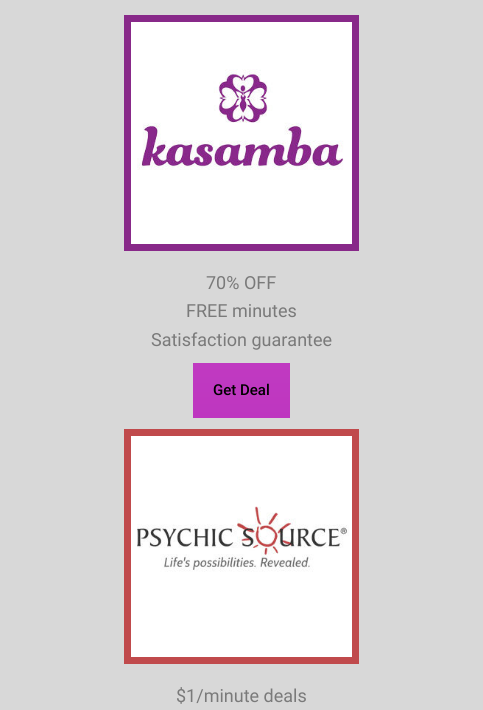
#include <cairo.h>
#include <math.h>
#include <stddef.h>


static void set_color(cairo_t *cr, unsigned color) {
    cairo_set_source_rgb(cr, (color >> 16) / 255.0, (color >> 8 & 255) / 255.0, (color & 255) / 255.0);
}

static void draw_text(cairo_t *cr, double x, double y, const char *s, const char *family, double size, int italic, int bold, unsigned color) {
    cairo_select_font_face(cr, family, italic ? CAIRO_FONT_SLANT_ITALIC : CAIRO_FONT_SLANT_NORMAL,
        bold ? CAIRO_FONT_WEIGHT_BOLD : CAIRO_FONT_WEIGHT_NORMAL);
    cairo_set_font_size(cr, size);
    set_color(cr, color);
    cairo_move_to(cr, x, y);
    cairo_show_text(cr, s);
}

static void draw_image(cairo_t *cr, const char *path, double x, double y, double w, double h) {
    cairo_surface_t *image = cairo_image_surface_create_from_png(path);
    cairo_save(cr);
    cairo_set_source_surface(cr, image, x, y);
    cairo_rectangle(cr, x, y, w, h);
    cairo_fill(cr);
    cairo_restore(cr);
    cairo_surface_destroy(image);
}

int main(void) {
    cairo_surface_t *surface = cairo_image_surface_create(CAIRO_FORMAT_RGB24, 483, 710);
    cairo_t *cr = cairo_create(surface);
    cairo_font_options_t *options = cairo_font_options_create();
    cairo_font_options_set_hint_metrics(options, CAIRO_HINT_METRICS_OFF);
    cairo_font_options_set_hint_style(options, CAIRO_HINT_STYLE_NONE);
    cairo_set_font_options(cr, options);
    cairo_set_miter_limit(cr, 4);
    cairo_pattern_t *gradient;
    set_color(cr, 0xD8D8D8);
    cairo_paint(cr);
    cairo_rectangle(cr, 127.5, 18.5, 228, 229);
    set_color(cr, 0x882989);
    cairo_set_line_width(cr, 7);
    cairo_stroke(cr);
    draw_image(cr, "assets/img1.png", 131, 22, 221, 222);
    draw_text(cr, 206, 289, "70% OFF", "Roboto", 18, 0, 0, 0x7A7A7A);
    draw_text(cr, 186, 317, "FREE minutes", "Roboto", 18, 0, 0, 0x7A7A7A);
    draw_text(cr, 151, 346, "Satisfaction guarantee", "Roboto", 18, 0, 0, 0x7A7A7A);
    gradient = cairo_pattern_create_linear(193, 363, 193, 418);
    cairo_pattern_add_color_stop_rgba(gradient, 0, 0.753, 0.227, 0.757, 1);
    cairo_pattern_add_color_stop_rgba(gradient, 1, 0.745, 0.212, 0.753, 1);
    cairo_set_source(cr, gradient);
    cairo_pattern_destroy(gradient);
    cairo_rectangle(cr, 193, 363, 97, 55);
    cairo_fill(cr);
    draw_text(cr, 213, 395, "Get Deal", "Roboto Medium", 15, 0, 0, 0x000000);
    cairo_rectangle(cr, 127.5, 432.5, 228, 228);
    set_color(cr, 0xC04A4C);
    cairo_stroke(cr);
    draw_image(cr, "assets/img2.png", 131, 436, 221, 221);
    draw_text(cr, 176, 702, "$1/minute deals", "Roboto", 18, 0, 0, 0x7A7A7A);
    cairo_surface_write_to_png(surface, "output.png");
    cairo_font_options_destroy(options);
    cairo_destroy(cr);
    cairo_surface_destroy(surface);
    return 0;
}
